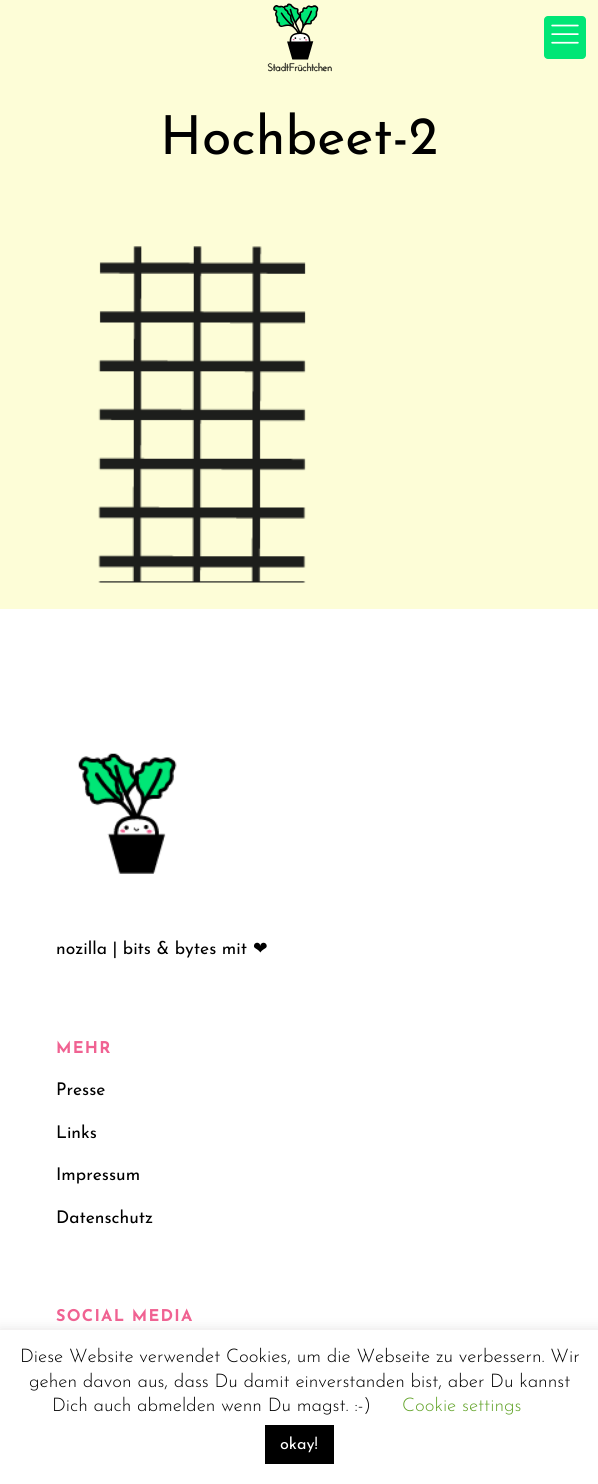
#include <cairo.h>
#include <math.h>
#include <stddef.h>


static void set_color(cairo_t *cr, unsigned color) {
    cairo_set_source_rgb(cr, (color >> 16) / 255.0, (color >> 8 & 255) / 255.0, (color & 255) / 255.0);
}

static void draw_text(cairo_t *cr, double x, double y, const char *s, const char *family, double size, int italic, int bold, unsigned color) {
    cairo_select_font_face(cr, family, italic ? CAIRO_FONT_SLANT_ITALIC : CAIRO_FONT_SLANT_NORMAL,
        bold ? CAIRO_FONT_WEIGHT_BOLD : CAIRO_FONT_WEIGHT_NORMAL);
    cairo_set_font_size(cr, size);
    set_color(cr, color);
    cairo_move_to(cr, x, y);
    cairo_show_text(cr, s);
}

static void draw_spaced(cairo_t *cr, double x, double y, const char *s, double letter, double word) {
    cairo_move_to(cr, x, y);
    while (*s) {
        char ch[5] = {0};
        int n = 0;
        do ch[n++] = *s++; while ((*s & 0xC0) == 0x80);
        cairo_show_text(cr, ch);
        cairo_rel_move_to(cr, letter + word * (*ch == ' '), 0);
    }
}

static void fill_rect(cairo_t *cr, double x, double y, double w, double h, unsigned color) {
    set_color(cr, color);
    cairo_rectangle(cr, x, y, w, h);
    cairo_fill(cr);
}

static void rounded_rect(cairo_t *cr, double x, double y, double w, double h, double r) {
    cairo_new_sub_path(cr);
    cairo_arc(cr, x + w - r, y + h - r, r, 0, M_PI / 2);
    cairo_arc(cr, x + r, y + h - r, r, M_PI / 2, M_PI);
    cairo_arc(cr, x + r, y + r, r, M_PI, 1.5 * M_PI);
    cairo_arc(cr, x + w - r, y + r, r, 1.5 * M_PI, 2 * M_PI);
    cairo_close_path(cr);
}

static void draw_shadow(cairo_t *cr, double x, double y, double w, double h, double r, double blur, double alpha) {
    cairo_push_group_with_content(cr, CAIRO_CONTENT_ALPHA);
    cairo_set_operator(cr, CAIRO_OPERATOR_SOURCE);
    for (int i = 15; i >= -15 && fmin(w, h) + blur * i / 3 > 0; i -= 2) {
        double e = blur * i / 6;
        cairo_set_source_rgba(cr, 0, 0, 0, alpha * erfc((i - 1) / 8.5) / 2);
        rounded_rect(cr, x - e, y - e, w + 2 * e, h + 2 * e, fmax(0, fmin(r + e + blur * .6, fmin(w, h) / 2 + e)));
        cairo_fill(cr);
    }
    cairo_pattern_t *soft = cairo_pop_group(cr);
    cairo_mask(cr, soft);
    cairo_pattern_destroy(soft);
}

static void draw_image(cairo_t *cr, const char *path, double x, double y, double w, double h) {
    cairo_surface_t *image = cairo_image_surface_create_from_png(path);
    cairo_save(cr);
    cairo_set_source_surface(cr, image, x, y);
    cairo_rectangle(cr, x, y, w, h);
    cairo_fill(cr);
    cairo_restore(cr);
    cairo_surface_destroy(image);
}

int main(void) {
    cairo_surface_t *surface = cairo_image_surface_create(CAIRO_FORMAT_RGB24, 598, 1484);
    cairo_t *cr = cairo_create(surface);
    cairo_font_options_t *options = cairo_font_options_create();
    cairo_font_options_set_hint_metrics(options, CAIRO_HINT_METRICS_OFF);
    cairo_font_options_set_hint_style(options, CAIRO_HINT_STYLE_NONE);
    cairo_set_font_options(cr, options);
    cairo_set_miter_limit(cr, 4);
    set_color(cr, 0xFDFDD7);
    cairo_paint(cr);
    draw_image(cr, "assets/img1.png", 267, 3, 65, 69);
    set_color(cr, 0x00E676);
    rounded_rect(cr, 544, 16, 42, 43, 4);
    cairo_fill(cr);
    draw_image(cr, "assets/img2.png", 551, 24, 28, 20);
    draw_text(cr, 160, 154, "Hochbeet-2", "Josefin Sans Thin", 53.75, 0, 0, 0x000000);
    draw_image(cr, "assets/img3.png", 98, 246, 208, 337);
    fill_rect(cr, 0, 609, 598, 721, 0xFFFFFF);
    draw_image(cr, "assets/img4.png", 78, 753, 99, 121);
    draw_text(cr, 56, 954, "nozilla | bits & bytes mit", "Josefin Sans Thin", 17.5, 0, 0, 0x000000);
    draw_text(cr, 253, 954, "❤", "DejaVu Sans", 17.5, 0, 0, 0x000000);
    cairo_select_font_face(cr, "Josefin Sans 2 Thin", CAIRO_FONT_SLANT_NORMAL, CAIRO_FONT_WEIGHT_NORMAL);
    cairo_set_font_size(cr, 16.25);
    set_color(cr, 0xF06292);
    draw_spaced(cr, 56, 1053, "MEHR", 1.25, 0);
    draw_text(cr, 56, 1095, "Presse", "Josefin Sans Thin", 17.5, 0, 0, 0x000000);
    draw_text(cr, 56, 1138, "Links", "Josefin Sans Thin", 17.5, 0, 0, 0x000000);
    draw_text(cr, 56, 1180, "Impressum", "Josefin Sans Thin", 17.5, 0, 0, 0x000000);
    draw_text(cr, 56, 1223, "Datenschutz", "Josefin Sans Thin", 17.5, 0, 0, 0x000000);
    cairo_select_font_face(cr, "Josefin Sans 2 Thin", CAIRO_FONT_SLANT_NORMAL, CAIRO_FONT_WEIGHT_NORMAL);
    cairo_set_font_size(cr, 16.25);
    set_color(cr, 0xF06292);
    draw_spaced(cr, 56, 1321, "SOCIAL MEDIA", 1.25, 0);
    set_color(cr, 0xACABAB);
    draw_shadow(cr, 0, 1329, 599, 155, 0, 6, 0.3);
    fill_rect(cr, 0, 1330, 598, 154, 0xFFFFFF);
    draw_text(cr, 20, 1362, "Diese Website verwendet Cookies, um die Webseite zu verbessern. Wir", "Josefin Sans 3 Thin", 18.75, 0, 0, 0x000000);
    draw_text(cr, 29, 1387, "gehen davon aus, dass Du damit einverstanden bist, aber Du kannst", "Josefin Sans 3 Thin", 18.75, 0, 0, 0x000000);
    draw_text(cr, 52, 1411, "Dich auch abmelden wenn Du magst. :-)", "Josefin Sans 3 Thin", 18.75, 0, 0, 0x000000);
    draw_text(cr, 402, 1411, "Cookie settings", "Josefin Sans 3 Thin", 18.75, 0, 0, 0x62A329);
    fill_rect(cr, 265, 1425, 69, 39, 0x000000);
    draw_text(cr, 280, 1449, "okay!", "Josefin Sans Thin", 16.25, 0, 0, 0xFFFFFF);
    cairo_surface_write_to_png(surface, "output.png");
    cairo_font_options_destroy(options);
    cairo_destroy(cr);
    cairo_surface_destroy(surface);
    return 0;
}
